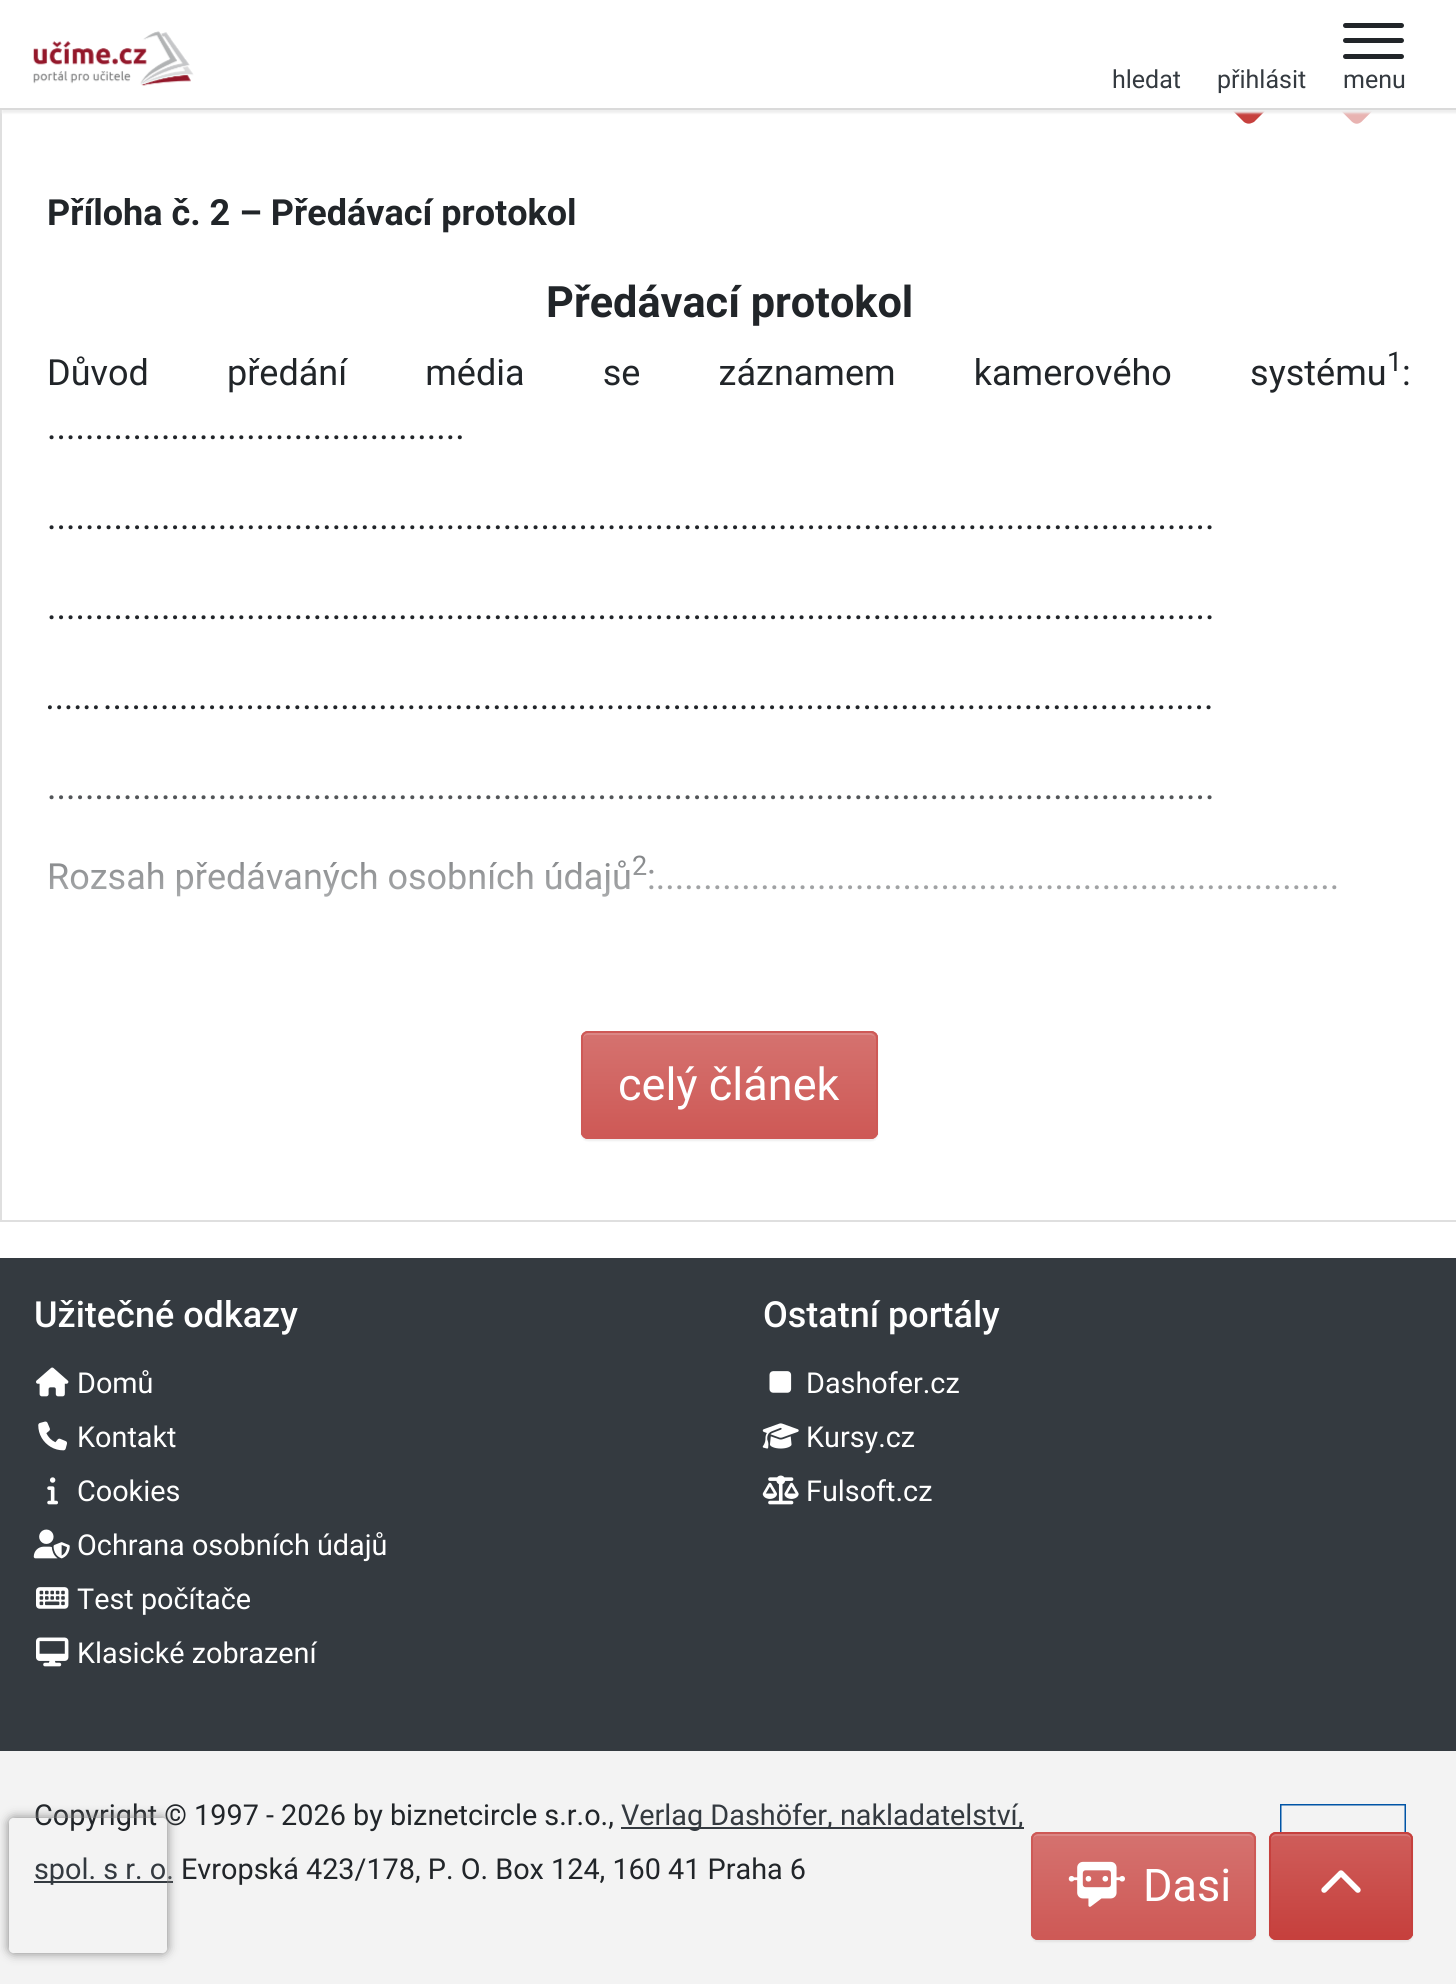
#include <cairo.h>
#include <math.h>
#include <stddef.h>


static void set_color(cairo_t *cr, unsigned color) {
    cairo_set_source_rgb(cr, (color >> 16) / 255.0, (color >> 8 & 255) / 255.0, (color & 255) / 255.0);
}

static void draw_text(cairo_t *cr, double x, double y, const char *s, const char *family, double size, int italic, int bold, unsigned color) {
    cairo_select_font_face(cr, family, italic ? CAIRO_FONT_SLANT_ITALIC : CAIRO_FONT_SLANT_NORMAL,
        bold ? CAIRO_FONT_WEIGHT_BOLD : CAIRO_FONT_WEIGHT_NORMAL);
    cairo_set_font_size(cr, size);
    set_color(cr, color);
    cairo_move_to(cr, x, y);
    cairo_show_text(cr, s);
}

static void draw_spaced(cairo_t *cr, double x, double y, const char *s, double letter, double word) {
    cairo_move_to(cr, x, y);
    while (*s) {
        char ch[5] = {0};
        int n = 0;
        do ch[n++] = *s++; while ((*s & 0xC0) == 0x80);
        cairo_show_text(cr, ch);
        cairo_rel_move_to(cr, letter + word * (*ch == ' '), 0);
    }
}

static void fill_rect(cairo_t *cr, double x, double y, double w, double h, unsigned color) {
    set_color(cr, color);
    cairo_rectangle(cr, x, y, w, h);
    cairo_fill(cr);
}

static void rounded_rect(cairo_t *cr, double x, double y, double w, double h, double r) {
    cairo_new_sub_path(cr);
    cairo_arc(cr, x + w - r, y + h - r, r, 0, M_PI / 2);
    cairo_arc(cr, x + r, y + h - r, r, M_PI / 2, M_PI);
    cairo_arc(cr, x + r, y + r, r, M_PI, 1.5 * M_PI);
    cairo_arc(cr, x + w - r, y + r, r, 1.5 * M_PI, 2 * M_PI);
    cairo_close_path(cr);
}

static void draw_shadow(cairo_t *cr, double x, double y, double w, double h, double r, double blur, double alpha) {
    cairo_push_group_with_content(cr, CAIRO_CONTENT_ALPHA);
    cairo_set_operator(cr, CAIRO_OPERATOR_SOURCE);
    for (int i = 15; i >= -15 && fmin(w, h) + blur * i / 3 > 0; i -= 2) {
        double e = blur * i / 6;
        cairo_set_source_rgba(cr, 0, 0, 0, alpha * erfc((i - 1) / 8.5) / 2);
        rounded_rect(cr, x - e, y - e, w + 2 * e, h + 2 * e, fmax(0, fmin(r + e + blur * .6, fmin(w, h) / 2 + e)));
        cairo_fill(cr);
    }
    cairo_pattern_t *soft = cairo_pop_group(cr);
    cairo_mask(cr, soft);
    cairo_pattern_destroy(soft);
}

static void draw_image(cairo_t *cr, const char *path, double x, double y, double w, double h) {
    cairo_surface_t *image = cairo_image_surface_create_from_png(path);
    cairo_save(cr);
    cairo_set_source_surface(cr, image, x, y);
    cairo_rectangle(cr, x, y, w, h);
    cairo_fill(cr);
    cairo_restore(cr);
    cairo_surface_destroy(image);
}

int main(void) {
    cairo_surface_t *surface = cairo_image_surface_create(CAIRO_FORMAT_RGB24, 1456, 1984);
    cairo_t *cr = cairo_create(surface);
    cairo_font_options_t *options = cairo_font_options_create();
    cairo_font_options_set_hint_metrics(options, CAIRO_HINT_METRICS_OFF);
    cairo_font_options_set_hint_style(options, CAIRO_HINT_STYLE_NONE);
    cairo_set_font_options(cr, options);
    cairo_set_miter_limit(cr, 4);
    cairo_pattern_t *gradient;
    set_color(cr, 0xFFFFFF);
    cairo_paint(cr);
    cairo_rectangle(cr, 1, -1, 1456, 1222);
    set_color(cr, 0xDFDFDF);
    cairo_stroke(cr);
    set_color(cr, 0xC6403D);
    cairo_new_path(cr);
    cairo_move_to(cr, 1303, 52);
    cairo_line_to(cr, 1258, 7);
    cairo_line_to(cr, 1303, 52);
    cairo_line_to(cr, 1258, 7);
    cairo_line_to(cr, 1258, 37);
    cairo_curve_to(cr, 1258, 50, 1259, 52, 1273, 52);
    cairo_close_path(cr);
    cairo_move_to(cr, 1256, 72);
    cairo_curve_to(cr, 1255, 68, 1253, 66, 1249, 65);
    cairo_curve_to(cr, 1245, 66, 1242, 68, 1242, 72);
    cairo_line_to(cr, 1242, 101);
    cairo_line_to(cr, 1233, 92);
    cairo_curve_to(cr, 1230, 89, 1227, 89, 1224, 92);
    cairo_curve_to(cr, 1221, 95, 1221, 98, 1224, 102);
    cairo_line_to(cr, 1244, 122);
    cairo_curve_to(cr, 1247, 124, 1250, 124, 1254, 122);
    cairo_line_to(cr, 1274, 102);
    cairo_curve_to(cr, 1276, 98, 1276, 95, 1274, 92);
    cairo_curve_to(cr, 1271, 89, 1267, 89, 1264, 92);
    cairo_line_to(cr, 1256, 101);
    cairo_close_path(cr);
    cairo_fill(cr);
    draw_image(cr, "assets/img2.png", 1232, 110, 141, 14);
    set_color(cr, 0xEEEEEE);
    draw_shadow(cr, 2, 2, 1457, 111, 0, 1, 1);
    fill_rect(cr, 0, 0, 1456, 108, 0xFFFFFF);
    fill_rect(cr, 0, 108, 1456, 2, 0xDADADA);
    draw_image(cr, "assets/img1.png", 33, 31, 161, 55);
    draw_text(cr, 1112, 88, "hledat", "Roboto", 25, 0, 0, 0x343A40);
    draw_text(cr, 1217, 88, "přihlásit", "Roboto", 25, 0, 0, 0x343A40);
    set_color(cr, 0x212529);
    rounded_rect(cr, 1343, 23, 61, 5, 2.5);
    cairo_fill(cr);
    rounded_rect(cr, 1343, 38, 61, 5, 2.5);
    cairo_fill(cr);
    rounded_rect(cr, 1343, 54, 61, 5, 2.5);
    cairo_fill(cr);
    draw_text(cr, 1343, 88, "menu", "Roboto", 25, 0, 0, 0x343A40);
    draw_text(cr, 47, 225, "Příloha č. 2 – Předávací protokol", "Roboto", 36, 0, 1, 0x212529);
    draw_text(cr, 546, 317, "Předávací protokol", "Roboto", 43.25, 0, 1, 0x212529);
    cairo_select_font_face(cr, "Roboto", CAIRO_FONT_SLANT_NORMAL, CAIRO_FONT_WEIGHT_NORMAL);
    cairo_set_font_size(cr, 36);
    draw_spaced(cr, 47, 385, "Důvod předání média se záznamem kamerového systému", 0, 69.25);
    draw_text(cr, 1387, 371, "1", "Roboto", 27, 0, 0, 0x212529);
    draw_text(cr, 1402, 385, ":", "Roboto", 36, 0, 0, 0x212529);
    draw_text(cr, 47, 439, "............................................", "Roboto", 36, 0, 0, 0x212529);
    draw_text(cr, 47, 529, "...........................................................................................................................", "Roboto", 36, 0, 0, 0x212529);
    draw_text(cr, 47, 619, "...........................................................................................................................", "Roboto", 36, 0, 0, 0x212529);
    draw_text(cr, 47, 709, "......", "Roboto", 36, 1, 0, 0x212529);
    draw_text(cr, 103, 709, ".....................................................................................................................", "Roboto", 36, 0, 0, 0x212529);
    draw_text(cr, 47, 799, "...........................................................................................................................", "Roboto", 36, 0, 0, 0x212529);
    draw_text(cr, 47, 889, "Rozsah předávaných osobních údajů", "Roboto", 36, 0, 0, 0x212529);
    draw_text(cr, 632, 875, "2", "Roboto", 27, 0, 0, 0x212529);
    draw_text(cr, 647, 889, ":........................................................................", "Roboto", 36, 0, 0, 0x212529);
    gradient = cairo_pattern_create_linear(729, 742, 729, 995);
    cairo_pattern_add_color_stop_rgba(gradient, 0, 1, 1, 1, 0);
    cairo_pattern_add_color_stop_rgba(gradient, 1, 1, 1, 1, 1);
    cairo_set_source(cr, gradient);
    cairo_pattern_destroy(gradient);
    cairo_rectangle(cr, 49, 795, 1288, 102);
    cairo_fill(cr);
    set_color(cr, 0x000000);
    draw_shadow(cr, 581, 1033, 297, 108, 7, 1, 0.07);
    set_color(cr, 0xCE5956);
    rounded_rect(cr, 581, 1031, 297, 108, 7);
    cairo_fill(cr);
    cairo_save(cr);
    rounded_rect(cr, 581, 1031, 297, 108, 7);
    cairo_clip(cr);
    gradient = cairo_pattern_create_linear(729, 1033, 729, 1136);
    cairo_pattern_add_color_stop_rgba(gradient, 0, 0.835, 0.447, 0.435, 1);
    cairo_pattern_add_color_stop_rgba(gradient, 1, 0.808, 0.349, 0.337, 1);
    cairo_set_source(cr, gradient);
    cairo_pattern_destroy(gradient);
    cairo_rectangle(cr, 581, 1033, 297, 103);
    cairo_fill(cr);
    cairo_restore(cr);
    set_color(cr, 0xDB8785);
    cairo_new_path(cr);
    cairo_move_to(cr, 587, 1035);
    cairo_line_to(cr, 871, 1035);
    cairo_line_to(cr, 874, 1036);
    cairo_line_to(cr, 875, 1040);
    cairo_curve_to(cr, 875, 1037, 874, 1033, 870, 1033);
    cairo_line_to(cr, 587, 1033);
    cairo_curve_to(cr, 583, 1034, 583, 1037, 583, 1040);
    cairo_curve_to(cr, 583, 1037, 585, 1035, 587, 1035);
    cairo_close_path(cr);
    cairo_fill(cr);
    rounded_rect(cr, 582, 1032, 295, 106, 6);
    set_color(cr, 0xCE5956);
    cairo_stroke(cr);
    draw_text(cr, 618, 1100, "celý článek", "Roboto", 45, 0, 0, 0xFFFFFF);
    fill_rect(cr, 0, 1258, 1456, 493, 0x343A40);
    draw_text(cr, 34, 1327, "Užitečné odkazy", "Roboto Medium", 36, 0, 0, 0xFFFFFF);
    draw_image(cr, "assets/img3.png", 36, 1367, 33, 30);
    draw_text(cr, 77, 1393, "Domů", "Roboto", 28.8, 0, 0, 0xFFFFFF);
    draw_image(cr, "assets/img4.png", 38, 1421, 29, 30);
    draw_text(cr, 77, 1447, "Kontakt", "Roboto", 28.8, 0, 0, 0xFFFFFF);
    draw_image(cr, "assets/img5.png", 47, 1477, 11, 28);
    draw_text(cr, 77, 1501, "Cookies", "Roboto", 28.8, 0, 0, 0xFFFFFF);
    draw_image(cr, "assets/img6.png", 33, 1529, 37, 30);
    draw_text(cr, 77, 1555, "Ochrana osobních údajů", "Roboto", 28.8, 0, 0, 0xFFFFFF);
    draw_image(cr, "assets/img7.png", 36, 1587, 33, 22);
    draw_text(cr, 77, 1609, "Test počítače", "Roboto", 28.8, 0, 0, 0xFFFFFF);
    draw_image(cr, "assets/img8.png", 36, 1637, 33, 30);
    draw_text(cr, 77, 1663, "Klasické zobrazení", "Roboto", 28.8, 0, 0, 0xFFFFFF);
    draw_text(cr, 763, 1327, "Ostatní portály", "Roboto Medium", 36, 0, 0, 0xFFFFFF);
    draw_image(cr, "assets/img9.png", 769, 1371, 23, 22);
    draw_text(cr, 806, 1393, "Dashofer.cz", "Roboto", 28.8, 0, 0, 0xFFFFFF);
    draw_image(cr, "assets/img10.png", 762, 1423, 37, 26);
    draw_text(cr, 806, 1447, "Kursy.cz", "Roboto", 28.8, 0, 0, 0xFFFFFF);
    draw_image(cr, "assets/img11.png", 762, 1475, 37, 30);
    draw_text(cr, 806, 1501, "Fulsoft.cz", "Roboto", 28.8, 0, 0, 0xFFFFFF);
    fill_rect(cr, 0, 1751, 1456, 233, 0xF3F3F3);
    draw_text(cr, 34, 1825, "Copyright © 1997 - 2026 by biznetcircle s.r.o.,", "Roboto", 28.8, 0, 0, 0x212529);
    fill_rect(cr, 621, 1827, 403, 2, 0x343A40);
    draw_text(cr, 621, 1825, "Verlag Dashöfer, nakladatelství,", "Roboto", 28.8, 0, 0, 0x343A40);
    fill_rect(cr, 34, 1881, 139, 2, 0x343A40);
    draw_text(cr, 34, 1879, "spol. s r. o.", "Roboto", 28.8, 0, 0, 0x343A40);
    draw_text(cr, 181, 1879, "Evropská 423/178, P. O. Box 124, 160 41 Praha 6", "Roboto", 28.8, 0, 0, 0x212529);
    draw_image(cr, "assets/img12.png", 1280, 1804, 126, 28);
    set_color(cr, 0x000000);
    draw_shadow(cr, 1031, 1834, 225, 108, 7, 1, 0.07);
    set_color(cr, 0xCE5956);
    rounded_rect(cr, 1031, 1832, 225, 108, 7);
    cairo_fill(cr);
    cairo_save(cr);
    rounded_rect(cr, 1031, 1832, 225, 108, 7);
    cairo_clip(cr);
    gradient = cairo_pattern_create_linear(1143, 1834, 1143, 1937);
    cairo_pattern_add_color_stop_rgba(gradient, 0, 0.835, 0.447, 0.435, 1);
    cairo_pattern_add_color_stop_rgba(gradient, 1, 0.808, 0.349, 0.337, 1);
    cairo_set_source(cr, gradient);
    cairo_pattern_destroy(gradient);
    cairo_rectangle(cr, 1031, 1834, 225, 103);
    cairo_fill(cr);
    cairo_restore(cr);
    set_color(cr, 0xDB8785);
    cairo_new_path(cr);
    cairo_move_to(cr, 1037, 1836);
    cairo_line_to(cr, 1249, 1836);
    cairo_curve_to(cr, 1251, 1836, 1253, 1838, 1253, 1840);
    cairo_curve_to(cr, 1253, 1837, 1251, 1834, 1248, 1834);
    cairo_line_to(cr, 1037, 1834);
    cairo_curve_to(cr, 1034, 1835, 1033, 1837, 1033, 1840);
    cairo_curve_to(cr, 1033, 1838, 1035, 1836, 1037, 1836);
    cairo_close_path(cr);
    cairo_fill(cr);
    rounded_rect(cr, 1032, 1833, 223, 106, 6);
    set_color(cr, 0xCE5956);
    cairo_stroke(cr);
    draw_image(cr, "assets/img13.png", 1068, 1861, 57, 46);
    draw_text(cr, 1143, 1901, "Dasi", "Roboto", 45, 0, 0, 0xFFFFFF);
    set_color(cr, 0x000000);
    draw_shadow(cr, 1269, 1834, 144, 108, 7, 1, 0.07);
    set_color(cr, 0xC6403D);
    rounded_rect(cr, 1269, 1832, 144, 108, 7);
    cairo_fill(cr);
    cairo_save(cr);
    rounded_rect(cr, 1269, 1832, 144, 108, 7);
    cairo_clip(cr);
    gradient = cairo_pattern_create_linear(1341, 1834, 1341, 1937);
    cairo_pattern_add_color_stop_rgba(gradient, 0, 0.812, 0.365, 0.353, 1);
    cairo_pattern_add_color_stop_rgba(gradient, 1, 0.776, 0.251, 0.239, 1);
    cairo_set_source(cr, gradient);
    cairo_pattern_destroy(gradient);
    cairo_rectangle(cr, 1269, 1834, 144, 103);
    cairo_fill(cr);
    cairo_restore(cr);
    set_color(cr, 0xD67573);
    cairo_new_path(cr);
    cairo_move_to(cr, 1276, 1836);
    cairo_line_to(cr, 1406, 1836);
    cairo_curve_to(cr, 1409, 1836, 1411, 1838, 1411, 1840);
    cairo_line_to(cr, 1411, 1839);
    cairo_curve_to(cr, 1411, 1836, 1409, 1834, 1406, 1834);
    cairo_line_to(cr, 1276, 1834);
    cairo_curve_to(cr, 1273, 1834, 1271, 1836, 1271, 1839);
    cairo_line_to(cr, 1271, 1840);
    cairo_curve_to(cr, 1271, 1838, 1273, 1836, 1276, 1836);
    cairo_close_path(cr);
    cairo_fill(cr);
    rounded_rect(cr, 1270, 1833, 142, 106, 6);
    set_color(cr, 0xC6403D);
    cairo_stroke(cr);
    draw_image(cr, "assets/img14.png", 1321, 1870, 40, 23);
    cairo_save(cr);
    cairo_set_fill_rule(cr, CAIRO_FILL_RULE_EVEN_ODD);
    cairo_new_path(cr);
    cairo_move_to(cr, 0, 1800);
    cairo_line_to(cr, 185, 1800);
    cairo_line_to(cr, 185, 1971);
    cairo_line_to(cr, 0, 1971);
    cairo_close_path(cr);
    cairo_move_to(cr, 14, 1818);
    cairo_line_to(cr, 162, 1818);
    cairo_curve_to(cr, 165, 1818, 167, 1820, 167, 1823);
    cairo_line_to(cr, 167, 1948);
    cairo_curve_to(cr, 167, 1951, 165, 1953, 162, 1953);
    cairo_line_to(cr, 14, 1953);
    cairo_curve_to(cr, 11, 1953, 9, 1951, 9, 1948);
    cairo_line_to(cr, 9, 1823);
    cairo_curve_to(cr, 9, 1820, 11, 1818, 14, 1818);
    cairo_close_path(cr);
    cairo_clip(cr);
    set_color(cr, 0x808080);
    draw_shadow(cr, 9, 1818, 158, 135, 5, 5.5, 1);
    cairo_restore(cr);
    cairo_surface_write_to_png(surface, "output.png");
    cairo_font_options_destroy(options);
    cairo_destroy(cr);
    cairo_surface_destroy(surface);
    return 0;
}
